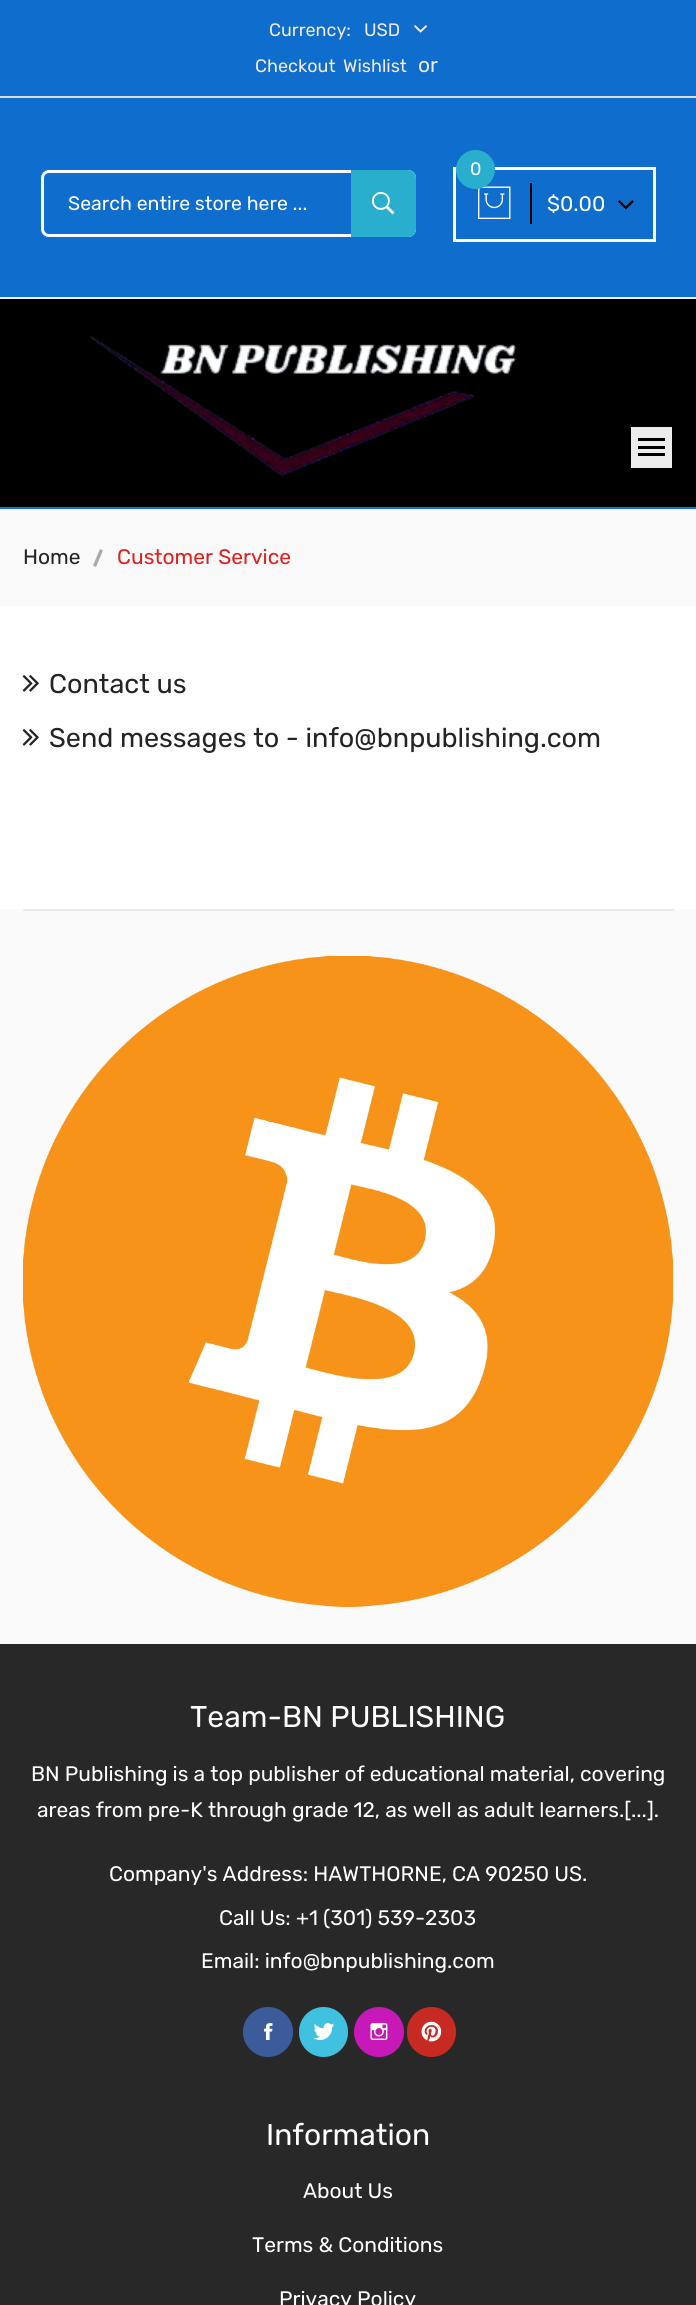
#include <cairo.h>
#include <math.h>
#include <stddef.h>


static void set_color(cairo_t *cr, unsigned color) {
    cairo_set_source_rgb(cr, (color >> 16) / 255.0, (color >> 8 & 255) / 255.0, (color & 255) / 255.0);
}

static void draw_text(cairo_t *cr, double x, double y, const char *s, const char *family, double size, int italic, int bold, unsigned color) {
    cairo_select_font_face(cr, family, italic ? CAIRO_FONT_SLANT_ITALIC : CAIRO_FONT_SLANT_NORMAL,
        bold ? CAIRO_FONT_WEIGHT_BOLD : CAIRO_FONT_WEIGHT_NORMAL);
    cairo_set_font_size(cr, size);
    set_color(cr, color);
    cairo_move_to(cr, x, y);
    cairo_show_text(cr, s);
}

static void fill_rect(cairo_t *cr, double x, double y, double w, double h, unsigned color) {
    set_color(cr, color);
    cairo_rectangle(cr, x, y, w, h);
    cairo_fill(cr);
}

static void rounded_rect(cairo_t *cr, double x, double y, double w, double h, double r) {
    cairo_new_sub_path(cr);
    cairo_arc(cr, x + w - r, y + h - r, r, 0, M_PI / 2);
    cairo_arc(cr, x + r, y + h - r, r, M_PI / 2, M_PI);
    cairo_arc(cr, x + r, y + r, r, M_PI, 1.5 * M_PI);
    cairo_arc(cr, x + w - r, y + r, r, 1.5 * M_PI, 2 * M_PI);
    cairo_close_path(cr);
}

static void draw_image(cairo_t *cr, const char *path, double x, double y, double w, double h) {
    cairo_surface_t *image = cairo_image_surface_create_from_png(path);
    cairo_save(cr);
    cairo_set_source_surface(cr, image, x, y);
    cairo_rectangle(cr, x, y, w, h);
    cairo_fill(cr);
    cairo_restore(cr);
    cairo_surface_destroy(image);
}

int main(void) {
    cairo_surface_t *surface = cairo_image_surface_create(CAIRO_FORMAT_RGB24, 696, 2305);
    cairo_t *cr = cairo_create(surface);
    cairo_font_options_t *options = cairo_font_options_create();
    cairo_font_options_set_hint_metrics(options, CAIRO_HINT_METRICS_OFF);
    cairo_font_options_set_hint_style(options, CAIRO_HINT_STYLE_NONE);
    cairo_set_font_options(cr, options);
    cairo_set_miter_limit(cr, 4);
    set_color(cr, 0xFFFFFF);
    cairo_paint(cr);
    fill_rect(cr, 0, 0, 696, 96, 0x0F6DCD);
    draw_text(cr, 269, 36, "Currency:", "Rubik", 18, 0, 0, 0xF2E8E8);
    draw_text(cr, 364, 36, "USD", "Rubik", 18, 0, 0, 0xF2E8E8);
    draw_image(cr, "assets/img1.png", 414, 25, 14, 8);
    draw_text(cr, 255, 72, "Checkout", "Rubik", 18, 0, 0, 0xF2E8E8);
    draw_text(cr, 343, 72, "Wishlist", "Rubik", 18, 0, 0, 0xF2E8E8);
    draw_text(cr, 418, 72, "or", "Rubik", 21, 0, 0, 0xF2E8E8);
    fill_rect(cr, 0, 98, 696, 199, 0x0F6DCD);
    fill_rect(cr, 0, 96, 696, 2, 0xDEDDDD);
    rounded_rect(cr, 42.5, 171.5, 372, 64, 6.5);
    set_color(cr, 0xF8F8F8);
    cairo_set_line_width(cr, 3);
    cairo_stroke(cr);
    draw_text(cr, 68, 210, "Search entire store here ...", "Rubik", 19.5, 0, 0, 0xFFFFFF);
    set_color(cr, 0x2AAECD);
    cairo_new_path(cr);
    cairo_move_to(cr, 351, 170);
    cairo_line_to(cr, 408, 170);
    cairo_curve_to(cr, 412.5, 170, 416, 173.5, 416, 178);
    cairo_line_to(cr, 416, 229);
    cairo_curve_to(cr, 416, 233.5, 412.5, 237, 408, 237);
    cairo_line_to(cr, 351, 237);
    cairo_close_path(cr);
    cairo_fill(cr);
    draw_image(cr, "assets/img2.png", 372, 192, 23, 23);
    cairo_rectangle(cr, 454.5, 168.5, 200, 72);
    set_color(cr, 0xFFFFFF);
    cairo_stroke(cr);
    draw_image(cr, "assets/img3.png", 478, 186, 33, 33);
    set_color(cr, 0x2AAECD);
    cairo_arc(cr, 475.5, 169.5, 19.5, 0, 2 * M_PI);
    cairo_fill(cr);
    draw_text(cr, 470, 175, "0", "Rubik", 18, 0, 0, 0xFFFFFF);
    fill_rect(cr, 530, 183, 2, 41, 0x000000);
    draw_text(cr, 547, 211, "$0.00", "Rubik", 21, 0, 0, 0xFFFFFF);
    draw_image(cr, "assets/img4.png", 618, 200, 16, 10);
    fill_rect(cr, 0, 299, 696, 208, 0x000000);
    fill_rect(cr, 0, 297, 696, 2, 0xF8F1F1);
    fill_rect(cr, 0, 507, 696, 2, 0x1473D4);
    draw_image(cr, "assets/img5.png", 90, 335, 427, 141);
    fill_rect(cr, 631, 427, 41, 41, 0xEDEDED);
    fill_rect(cr, 638, 438, 27, 3, 0x000000);
    fill_rect(cr, 638, 446, 27, 3, 0x000000);
    fill_rect(cr, 638, 453, 27, 3, 0x000000);
    fill_rect(cr, 0, 509, 696, 97, 0xF9F9F9);
    draw_text(cr, 23, 564, "Home", "Rubik", 21, 0, 0, 0x242424);
    set_color(cr, 0xAAAAAA);
    cairo_new_path(cr);
    cairo_move_to(cr, 93, 565.5);
    cairo_line_to(cr, 100, 549);
    cairo_line_to(cr, 103, 550.5);
    cairo_line_to(cr, 96, 567);
    cairo_close_path(cr);
    cairo_fill(cr);
    draw_text(cr, 117, 564, "Customer Service", "Rubik", 21, 0, 0, 0xDF2121);
    draw_image(cr, "assets/img6.png", 22, 675, 17, 17);
    draw_text(cr, 49, 693, "Contact us", "Rubik", 27, 0, 0, 0x242424);
    draw_image(cr, "assets/img6.png", 22, 729, 17, 17);
    draw_text(cr, 49, 747, "Send messages to - info@bnpublishing.com", "Rubik", 27, 0, 0, 0x242424);
    fill_rect(cr, 0, 909, 696, 735, 0xFAFAFA);
    fill_rect(cr, 23, 909, 651, 2, 0xEBEBEB);
    draw_image(cr, "assets/img7.png", 23, 956, 650, 651);
    fill_rect(cr, 0, 1644, 696, 661, 0x282829);
    draw_text(cr, 190, 1727, "Team-BN PUBLISHING", "Rubik", 30, 0, 0, 0xFFFFFF);
    draw_text(cr, 31, 1781, "BN Publishing is a top publisher of educational material, covering", "Rubik", 21, 0, 0, 0xFFFFFF);
    draw_text(cr, 37, 1817, "areas from pre-K through grade 12, as well as adult learners.[...].", "Rubik", 21, 0, 0, 0xFFFFFF);
    draw_text(cr, 109, 1881, "Company's Address: HAWTHORNE, CA 90250 US.", "Rubik", 21, 0, 0, 0xFFFFFF);
    draw_text(cr, 219, 1925, "Call Us: +1 (301) 539-2303", "Rubik", 21, 0, 0, 0xFFFFFF);
    draw_text(cr, 201, 1968, "Email: info@bnpublishing.com", "Rubik", 21, 0, 0, 0xFFFFFF);
    set_color(cr, 0x3C5B9B);
    cairo_new_path(cr);
    cairo_arc(cr, 268, 2032, 23.5, 0, 2 * M_PI);
    cairo_fill_preserve(cr);
    cairo_stroke(cr);
    draw_image(cr, "assets/img8.png", 264, 2023, 9, 17);
    set_color(cr, 0x40C1DF);
    rounded_rect(cr, 300.5, 2008.5, 46, 47, 23);
    cairo_fill_preserve(cr);
    cairo_stroke(cr);
    draw_image(cr, "assets/img9.png", 313, 2023, 22, 17);
    set_color(cr, 0xC619B8);
    cairo_arc(cr, 379, 2032, 23.5, 0, 2 * M_PI);
    cairo_fill_preserve(cr);
    cairo_stroke(cr);
    draw_image(cr, "assets/img10.png", 370, 2023, 18, 17);
    set_color(cr, 0xC62A21);
    rounded_rect(cr, 408.5, 2008.5, 46, 47, 23);
    cairo_fill_preserve(cr);
    cairo_stroke(cr);
    draw_image(cr, "assets/img11.png", 421, 2021, 21, 21);
    draw_text(cr, 266, 2145, "Information", "Rubik", 30, 0, 0, 0xFFFFFF);
    draw_text(cr, 303, 2198, "About Us", "Rubik", 21, 0, 0, 0xFFFFFF);
    draw_text(cr, 252, 2252, "Terms & Conditions", "Rubik", 21, 0, 0, 0xFFFFFF);
    draw_text(cr, 279, 2306, "Privacy Policy", "Rubik", 21, 0, 0, 0xFFFFFF);
    cairo_surface_write_to_png(surface, "output.png");
    cairo_font_options_destroy(options);
    cairo_destroy(cr);
    cairo_surface_destroy(surface);
    return 0;
}
